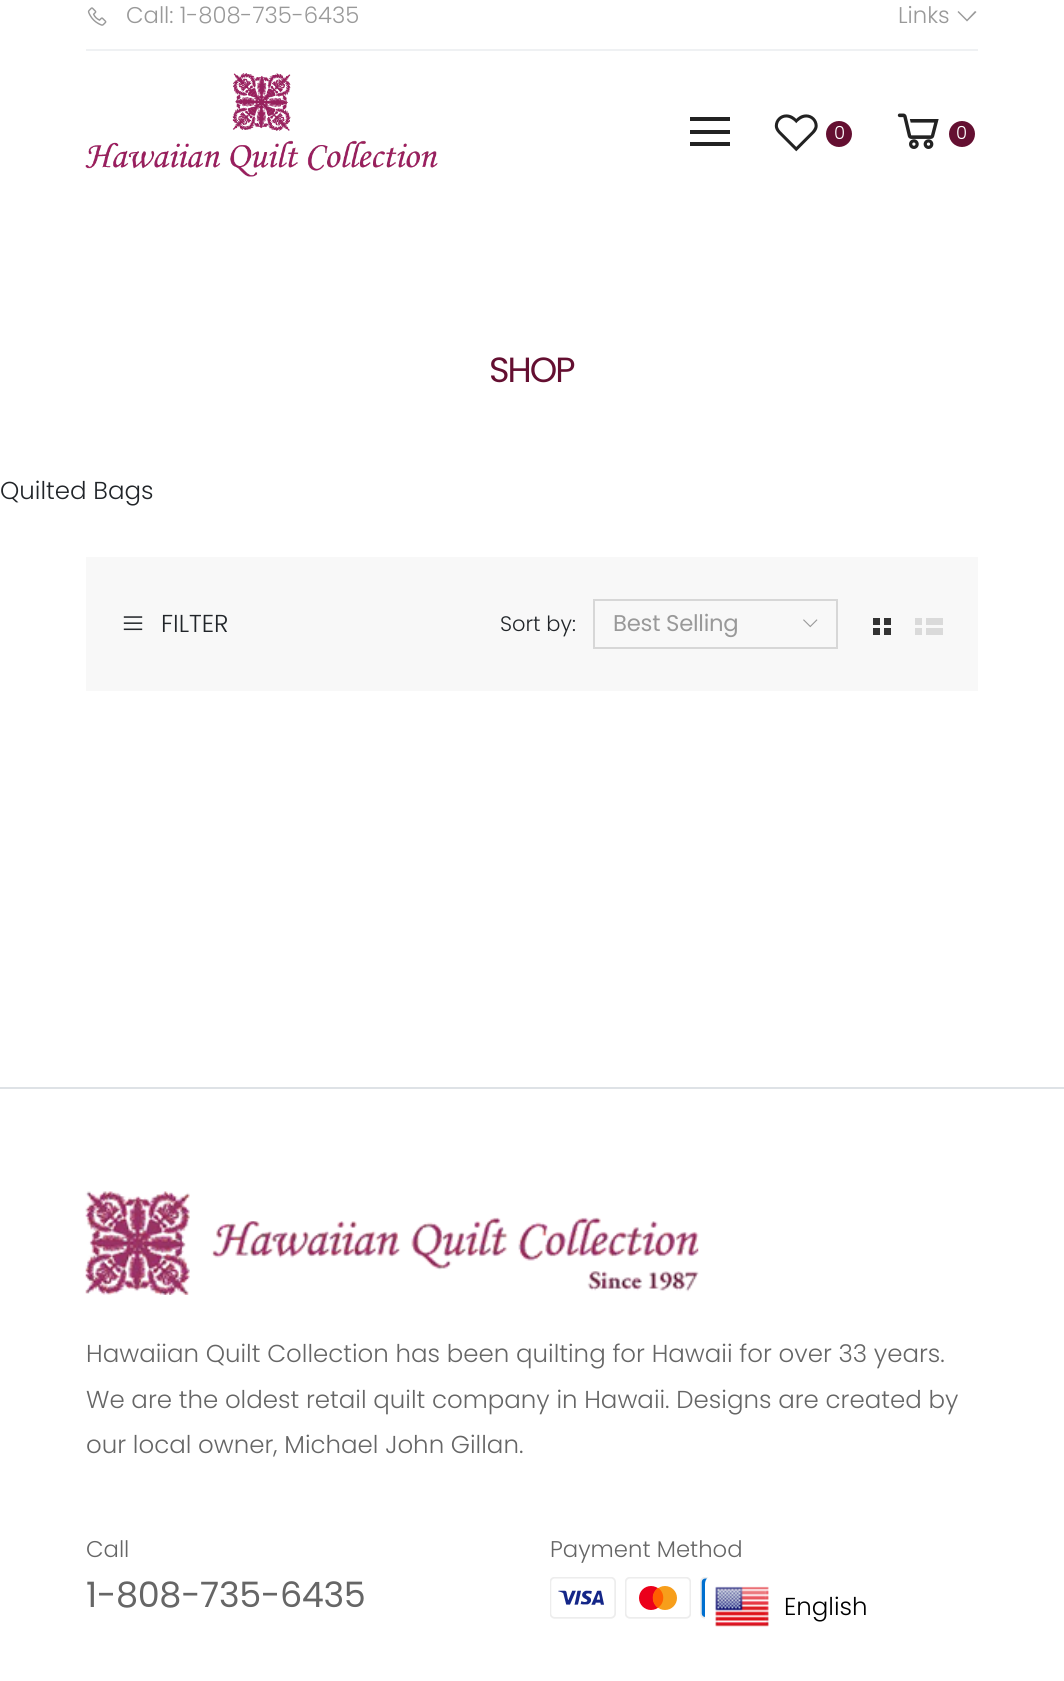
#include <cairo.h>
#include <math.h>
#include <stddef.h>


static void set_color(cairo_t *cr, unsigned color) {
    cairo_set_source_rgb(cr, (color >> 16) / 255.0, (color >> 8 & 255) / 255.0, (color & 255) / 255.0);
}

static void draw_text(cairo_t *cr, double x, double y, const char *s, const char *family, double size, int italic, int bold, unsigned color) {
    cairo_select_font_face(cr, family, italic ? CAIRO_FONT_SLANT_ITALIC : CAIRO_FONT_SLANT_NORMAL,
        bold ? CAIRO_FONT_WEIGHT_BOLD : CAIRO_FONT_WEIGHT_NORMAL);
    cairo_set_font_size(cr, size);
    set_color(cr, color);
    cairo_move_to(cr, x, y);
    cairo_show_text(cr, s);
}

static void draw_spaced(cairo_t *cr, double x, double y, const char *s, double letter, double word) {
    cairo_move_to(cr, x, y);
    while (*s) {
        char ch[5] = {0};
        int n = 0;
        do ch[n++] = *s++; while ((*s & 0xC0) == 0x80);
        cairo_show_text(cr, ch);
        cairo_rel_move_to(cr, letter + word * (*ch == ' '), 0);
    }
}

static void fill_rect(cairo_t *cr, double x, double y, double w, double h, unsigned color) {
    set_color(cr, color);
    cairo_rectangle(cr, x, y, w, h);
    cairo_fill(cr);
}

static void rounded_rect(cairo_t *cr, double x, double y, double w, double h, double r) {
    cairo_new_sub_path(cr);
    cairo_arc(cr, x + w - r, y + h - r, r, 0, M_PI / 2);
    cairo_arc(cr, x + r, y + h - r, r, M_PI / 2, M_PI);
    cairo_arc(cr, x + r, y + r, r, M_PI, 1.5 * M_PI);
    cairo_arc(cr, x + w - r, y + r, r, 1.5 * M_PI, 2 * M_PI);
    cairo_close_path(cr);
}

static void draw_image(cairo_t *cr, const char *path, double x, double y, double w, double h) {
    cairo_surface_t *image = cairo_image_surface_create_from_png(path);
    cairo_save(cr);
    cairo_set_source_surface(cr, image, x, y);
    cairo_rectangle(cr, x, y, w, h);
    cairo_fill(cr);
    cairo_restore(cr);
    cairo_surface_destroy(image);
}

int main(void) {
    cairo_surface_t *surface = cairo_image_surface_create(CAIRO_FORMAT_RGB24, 1064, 1681);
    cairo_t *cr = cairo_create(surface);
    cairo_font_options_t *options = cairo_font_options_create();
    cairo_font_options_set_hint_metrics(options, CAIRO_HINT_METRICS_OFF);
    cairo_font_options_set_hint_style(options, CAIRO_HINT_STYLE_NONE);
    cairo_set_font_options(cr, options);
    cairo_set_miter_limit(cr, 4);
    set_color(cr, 0xFFFFFF);
    cairo_paint(cr);
    draw_image(cr, "assets/img1.png", 87, 7, 20, 19);
    draw_text(cr, 126, 23, "Call: 1-808-735-6435", "Poppins Light", 22.75, 0, 0, 0x999999);
    draw_text(cr, 898, 23, "Links", "Poppins Light", 22.75, 0, 0, 0x999999);
    cairo_new_path(cr);
    cairo_move_to(cr, 958.5, 11);
    cairo_line_to(cr, 967, 19.5);
    cairo_line_to(cr, 975, 11);
    cairo_line_to(cr, 976.5, 12);
    cairo_line_to(cr, 967, 21.5);
    cairo_line_to(cr, 957.5, 12);
    cairo_close_path(cr);
    cairo_fill(cr);
    fill_rect(cr, 86, 49, 892, 2, 0xEFF1F3);
    draw_image(cr, "assets/img2.png", 85, 73, 353, 104);
    fill_rect(cr, 690, 117, 40, 4, 0x222222);
    fill_rect(cr, 690, 130, 40, 4, 0x222222);
    fill_rect(cr, 690, 142, 40, 4, 0x222222);
    draw_image(cr, "assets/img3.png", 774, 114, 44, 38);
    set_color(cr, 0x640F31);
    cairo_arc(cr, 839, 134, 13, 0, 2 * M_PI);
    cairo_fill(cr);
    draw_text(cr, 834, 139, "0", "Poppins Light", 18, 0, 0, 0xFFFFFF);
    draw_image(cr, "assets/img4.png", 897, 113, 42, 36);
    set_color(cr, 0x640F31);
    cairo_arc(cr, 962, 134, 13, 0, 2 * M_PI);
    cairo_fill(cr);
    draw_text(cr, 956, 139, "0", "Poppins Light", 18, 0, 0, 0xFFFFFF);
    cairo_select_font_face(cr, "Poppins", CAIRO_FONT_SLANT_NORMAL, CAIRO_FONT_WEIGHT_NORMAL);
    cairo_set_font_size(cr, 35);
    set_color(cr, 0x640F31);
    draw_spaced(cr, 489, 382, "SHOP", -2, 0);
    draw_text(cr, 0, 499, "Quilted Bags", "Poppins Light", 24.5, 0, 0, 0x212529);
    fill_rect(cr, 86, 557, 892, 134, 0xF8F8F8);
    draw_image(cr, "assets/img5.png", 123, 616, 20, 15);
    draw_text(cr, 161, 632, "FILTER", "Poppins Light", 24.5, 0, 0, 0x212529);
    draw_text(cr, 500, 631, "Sort by:", "Poppins Light", 21, 0, 0, 0x212529);
    cairo_rectangle(cr, 594, 600, 243, 48);
    set_color(cr, 0xD7D7D7);
    cairo_stroke(cr);
    cairo_select_font_face(cr, "Poppins", CAIRO_FONT_SLANT_NORMAL, CAIRO_FONT_WEIGHT_NORMAL);
    cairo_set_font_size(cr, 22.75);
    set_color(cr, 0x999999);
    draw_spaced(cr, 613, 631, "Best Selling", -0.25, 0);
    draw_image(cr, "assets/img6.png", 803, 619, 15, 9);
    fill_rect(cr, 873, 618, 7, 7, 0x333333);
    fill_rect(cr, 884, 618, 7, 7, 0x333333);
    fill_rect(cr, 873, 628, 7, 7, 0x333333);
    fill_rect(cr, 884, 628, 7, 7, 0x333333);
    fill_rect(cr, 915, 618, 7, 7, 0xDADADA);
    fill_rect(cr, 926, 618, 17, 7, 0xDADADA);
    fill_rect(cr, 915, 628, 7, 7, 0xDADADA);
    fill_rect(cr, 926, 628, 17, 7, 0xDADADA);
    fill_rect(cr, 0, 1087, 1064, 2, 0xDEE2E6);
    draw_image(cr, "assets/img7.png", 85, 1191, 614, 104);
    draw_text(cr, 86, 1362, "Hawaiian Quilt Collection has been quilting for Hawaii for over 33 years.", "Poppins Light", 24.5, 0, 0, 0x666666);
    draw_text(cr, 86, 1408, "We are the oldest retail quilt company in Hawaii. Designs are created by", "Poppins Light", 24.5, 0, 0, 0x666666);
    draw_text(cr, 86, 1453, "our local owner, Michael John Gillan.", "Poppins Light", 24.5, 0, 0, 0x666666);
    draw_text(cr, 86, 1557, "Call", "Poppins Light", 22.75, 0, 0, 0x666666);
    cairo_select_font_face(cr, "Poppins", CAIRO_FONT_SLANT_NORMAL, CAIRO_FONT_WEIGHT_NORMAL);
    cairo_set_font_size(cr, 35);
    draw_spaced(cr, 86, 1607, "1-808-735-6435", -0.3, 0);
    draw_text(cr, 550, 1557, "Payment Method", "Poppins Light", 22.75, 0, 0, 0x666666);
    draw_image(cr, "assets/img8.png", 550, 1577, 66, 42);
    draw_image(cr, "assets/img9.png", 625, 1577, 66, 42);
    draw_image(cr, "assets/img10.png", 700, 1577, 9, 42);
    set_color(cr, 0xFFFFFF);
    rounded_rect(cr, 705, 1575, 315, 63, 9);
    cairo_fill(cr);
    draw_image(cr, "assets/img11.png", 715, 1586, 54, 41);
    draw_text(cr, 784, 1615, "English", "Poppins Light", 24.5, 0, 0, 0x000000);
    cairo_surface_write_to_png(surface, "output.png");
    cairo_font_options_destroy(options);
    cairo_destroy(cr);
    cairo_surface_destroy(surface);
    return 0;
}
